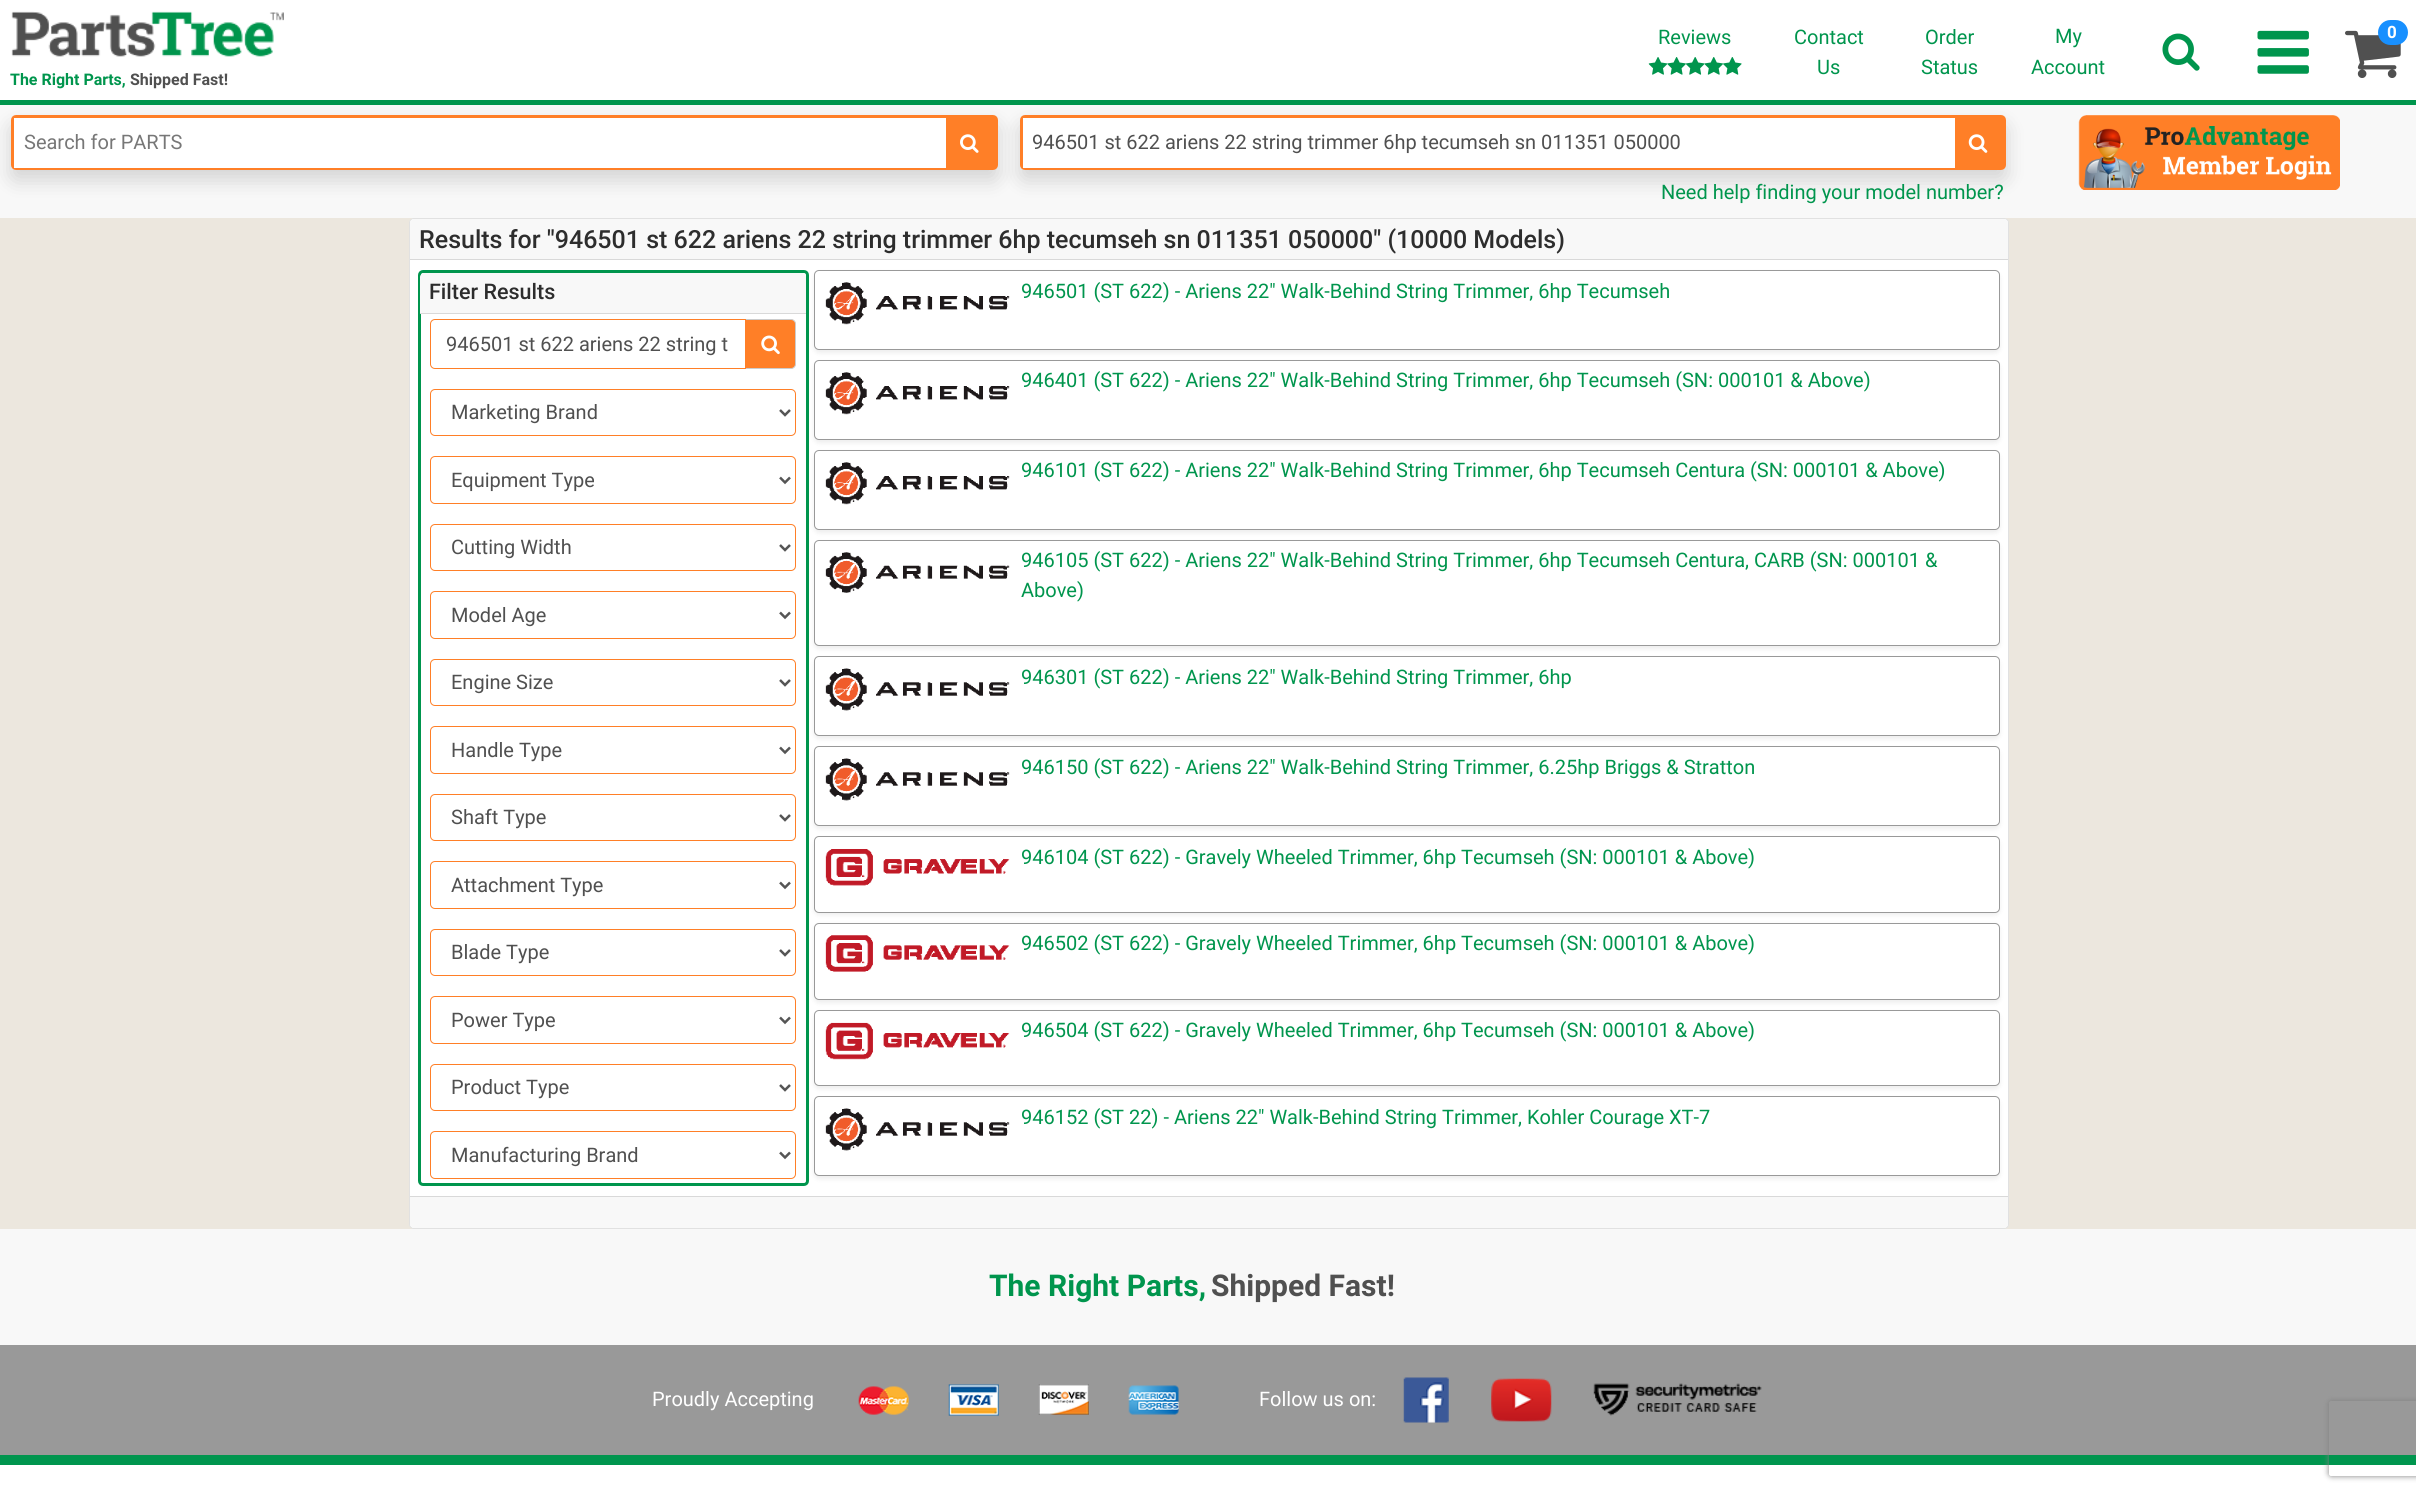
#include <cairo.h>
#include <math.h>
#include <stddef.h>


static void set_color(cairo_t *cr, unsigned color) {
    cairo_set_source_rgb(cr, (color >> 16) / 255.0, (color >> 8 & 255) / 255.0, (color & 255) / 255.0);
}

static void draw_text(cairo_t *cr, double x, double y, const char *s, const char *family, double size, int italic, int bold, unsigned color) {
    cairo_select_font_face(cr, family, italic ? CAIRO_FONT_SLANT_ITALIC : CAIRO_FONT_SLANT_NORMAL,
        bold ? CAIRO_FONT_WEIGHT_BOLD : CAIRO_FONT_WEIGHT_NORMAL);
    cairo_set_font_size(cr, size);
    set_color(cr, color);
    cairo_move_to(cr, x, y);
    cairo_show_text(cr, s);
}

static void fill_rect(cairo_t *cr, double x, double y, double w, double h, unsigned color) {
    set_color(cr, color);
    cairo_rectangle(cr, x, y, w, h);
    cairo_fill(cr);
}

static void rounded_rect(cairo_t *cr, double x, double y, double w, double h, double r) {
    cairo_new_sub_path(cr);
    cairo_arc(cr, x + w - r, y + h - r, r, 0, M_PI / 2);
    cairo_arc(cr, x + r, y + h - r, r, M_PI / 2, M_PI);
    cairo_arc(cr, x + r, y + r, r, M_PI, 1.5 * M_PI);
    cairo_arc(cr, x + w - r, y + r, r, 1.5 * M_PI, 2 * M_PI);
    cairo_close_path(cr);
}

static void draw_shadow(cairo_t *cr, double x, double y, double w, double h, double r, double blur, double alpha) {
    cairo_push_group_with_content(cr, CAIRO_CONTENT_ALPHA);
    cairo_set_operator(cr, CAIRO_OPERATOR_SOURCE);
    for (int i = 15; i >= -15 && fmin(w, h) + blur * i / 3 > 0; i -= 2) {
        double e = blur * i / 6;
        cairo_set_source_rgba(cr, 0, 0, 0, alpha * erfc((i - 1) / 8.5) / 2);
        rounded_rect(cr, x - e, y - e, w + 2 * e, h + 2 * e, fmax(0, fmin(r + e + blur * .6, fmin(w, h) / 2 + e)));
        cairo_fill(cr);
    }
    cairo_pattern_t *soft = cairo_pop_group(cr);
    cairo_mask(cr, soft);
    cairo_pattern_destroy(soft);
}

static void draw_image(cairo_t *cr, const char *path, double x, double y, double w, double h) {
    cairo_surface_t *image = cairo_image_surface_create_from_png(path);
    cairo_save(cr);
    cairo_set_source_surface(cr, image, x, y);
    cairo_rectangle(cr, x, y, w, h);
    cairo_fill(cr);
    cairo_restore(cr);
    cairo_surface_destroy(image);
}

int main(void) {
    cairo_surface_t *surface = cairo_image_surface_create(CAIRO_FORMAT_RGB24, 2416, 1493);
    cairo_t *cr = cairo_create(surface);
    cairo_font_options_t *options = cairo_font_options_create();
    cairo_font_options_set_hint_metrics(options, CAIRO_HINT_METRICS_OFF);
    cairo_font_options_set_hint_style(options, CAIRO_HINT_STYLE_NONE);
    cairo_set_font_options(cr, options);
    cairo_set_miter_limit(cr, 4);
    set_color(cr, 0xFFFFFF);
    cairo_paint(cr);
    fill_rect(cr, 0, 100, 2416, 5, 0x00954D);
    draw_text(cr, 1658, 44, "Reviews", "Roboto", 20, 0, 0, 0x00954D);
    draw_image(cr, "assets/img1.png", 1648, 57, 94, 18);
    draw_text(cr, 1794, 44, "Contact", "Roboto", 20, 0, 0, 0x00954D);
    draw_text(cr, 1817, 74, "Us", "Roboto", 20, 0, 0, 0x00954D);
    draw_text(cr, 1925, 44, "Order", "Roboto", 20, 0, 0, 0x00954D);
    draw_text(cr, 1921, 74, "Status", "Roboto", 20, 0, 0, 0x00954D);
    draw_text(cr, 2055, 43, "My", "Roboto", 20, 0, 0, 0x00954D);
    draw_text(cr, 2031, 74, "Account", "Roboto", 20, 0, 0, 0x00954D);
    draw_image(cr, "assets/img2.png", 2162, 33, 38, 38);
    draw_image(cr, "assets/img3.png", 2257, 30, 52, 44);
    draw_image(cr, "assets/img4.png", 2345, 30, 56, 48);
    set_color(cr, 0x1890FF);
    rounded_rect(cr, 2378, 20, 30, 25, 12.5);
    cairo_fill(cr);
    draw_text(cr, 2387, 38, "0", "Roboto", 17, 0, 1, 0xFFFFFF);
    draw_image(cr, "assets/img5.png", 11, 11, 273, 46);
    draw_text(cr, 10, 85, "The Right Parts,", "Roboto", 16, 0, 1, 0x00954D);
    draw_text(cr, 130, 85, "Shipped Fast!", "Roboto", 16, 0, 1, 0x505050);
    fill_rect(cr, 0, 105, 2416, 113, 0xF8F8F8);
    set_color(cr, 0x000000);
    draw_shadow(cr, 11, 125, 987, 55, 5, 10, 0.15);
    rounded_rect(cr, 12.5, 116.5, 984, 52, 3.5);
    set_color(cr, 0xFF7F27);
    cairo_set_line_width(cr, 3);
    cairo_stroke(cr);
    fill_rect(cr, 14, 118, 932, 50, 0xFFFFFF);
    draw_text(cr, 24, 149, "Search for PARTS", "Roboto", 20, 0, 0, 0x777777);
    fill_rect(cr, 946, 118, 49, 49, 0xFF7F27);
    draw_image(cr, "assets/img6.png", 960, 134, 19, 19);
    set_color(cr, 0x000000);
    draw_shadow(cr, 1020, 125, 986, 55, 5, 10, 0.15);
    rounded_rect(cr, 1021.5, 116.5, 983, 52, 3.5);
    set_color(cr, 0xFF7F27);
    cairo_stroke(cr);
    fill_rect(cr, 1023, 118, 932, 50, 0xFFFFFF);
    draw_text(cr, 1032, 149, "946501 st 622 ariens 22 string trimmer 6hp tecumseh sn 011351 050000", "Roboto", 20, 0, 0, 0x505050);
    fill_rect(cr, 1955, 118, 48, 49, 0xFF7F27);
    draw_image(cr, "assets/img7.png", 1968, 134, 20, 19);
    draw_text(cr, 1661, 199, "Need help finding your model number?", "Roboto", 20, 0, 0, 0x00954D);
    draw_image(cr, "assets/img8.png", 2078, 115, 262, 75);
    fill_rect(cr, 0, 218, 2416, 1011, 0xECE7DE);
    set_color(cr, 0xFFFFFF);
    rounded_rect(cr, 409, 218, 1600, 1011, 5);
    cairo_fill(cr);
    rounded_rect(cr, 409.5, 218.5, 1599, 1010, 4.5);
    cairo_set_source_rgba(cr, 0, 0, 0, 0.12);
    cairo_set_line_width(cr, 1);
    cairo_stroke(cr);
    set_color(cr, 0xF8F8F8);
    cairo_new_path(cr);
    cairo_move_to(cr, 414, 219);
    cairo_line_to(cr, 2004, 219);
    cairo_curve_to(cr, 2006, 219, 2008, 221, 2008, 223);
    cairo_line_to(cr, 2008, 260);
    cairo_line_to(cr, 410, 260);
    cairo_line_to(cr, 410, 223);
    cairo_curve_to(cr, 410, 221, 412, 219, 414, 219);
    cairo_close_path(cr);
    cairo_fill(cr);
    fill_rect(cr, 410, 259, 1598, 1, 0xD9D9D9);
    draw_text(cr, 419, 248, "Results for \"946501 st 622 ariens 22 string trimmer 6hp tecumseh sn 011351 050000\" (10000 Models)", "Roboto Medium", 25, 0, 0, 0x2D2D2D);
    rounded_rect(cr, 419.5, 271.5, 388, 913, 3.5);
    set_color(cr, 0x00954D);
    cairo_set_line_width(cr, 3);
    cairo_stroke(cr);
    set_color(cr, 0xF8F8F8);
    cairo_new_path(cr);
    cairo_move_to(cr, 424, 273);
    cairo_line_to(cr, 802, 273);
    cairo_curve_to(cr, 804, 273, 806, 275, 806, 277);
    cairo_line_to(cr, 806, 314);
    cairo_line_to(cr, 420, 314);
    cairo_line_to(cr, 420, 277);
    cairo_curve_to(cr, 420, 275, 422, 273, 424, 273);
    cairo_close_path(cr);
    cairo_fill(cr);
    fill_rect(cr, 420, 313, 386, 1, 0xD9D9D9);
    draw_text(cr, 429, 299, "Filter Results", "Roboto Medium", 21.5, 0, 0, 0x2D2D2D);
    set_color(cr, 0xFF7F27);
    cairo_new_path(cr);
    cairo_move_to(cr, 745.5, 319.5);
    cairo_line_to(cr, 791, 319.5);
    cairo_curve_to(cr, 793.5, 319.5, 795.5, 321.5, 795.5, 324);
    cairo_line_to(cr, 795.5, 364);
    cairo_curve_to(cr, 795.5, 366.5, 793.5, 368.5, 791, 368.5);
    cairo_line_to(cr, 745.5, 368.5);
    cairo_close_path(cr);
    cairo_fill_preserve(cr);
    set_color(cr, 0xCCCCCC);
    cairo_set_line_width(cr, 1);
    cairo_stroke(cr);
    cairo_new_path(cr);
    cairo_move_to(cr, 435, 319.5);
    cairo_line_to(cr, 745.5, 319.5);
    cairo_line_to(cr, 745.5, 368.5);
    cairo_line_to(cr, 435, 368.5);
    cairo_curve_to(cr, 432.5, 368.5, 430.5, 366.5, 430.5, 364);
    cairo_line_to(cr, 430.5, 324);
    cairo_curve_to(cr, 430.5, 321.5, 432.5, 319.5, 435, 319.5);
    cairo_close_path(cr);
    set_color(cr, 0xFF7F27);
    cairo_stroke(cr);
    draw_text(cr, 446, 351, "946501 st 622 ariens 22 string t", "Roboto", 20, 0, 0, 0x505050);
    draw_image(cr, "assets/img9.png", 761, 335, 19, 20);
    rounded_rect(cr, 430.5, 389.5, 365, 46, 4.5);
    set_color(cr, 0xFF7F27);
    cairo_stroke(cr);
    cairo_new_path(cr);
    cairo_move_to(cr, 780, 410);
    cairo_line_to(cr, 785, 415);
    cairo_line_to(cr, 790, 410);
    set_color(cr, 0x555555);
    cairo_set_line_width(cr, 2.5);
    cairo_stroke(cr);
    draw_text(cr, 451, 419, "Marketing Brand", "Roboto", 20, 0, 0, 0x505050);
    rounded_rect(cr, 430.5, 456.5, 365, 47, 4.5);
    set_color(cr, 0xFF7F27);
    cairo_set_line_width(cr, 1);
    cairo_stroke(cr);
    cairo_new_path(cr);
    cairo_move_to(cr, 780, 477.5);
    cairo_line_to(cr, 785, 482.5);
    cairo_line_to(cr, 790, 477.5);
    set_color(cr, 0x555555);
    cairo_set_line_width(cr, 2.5);
    cairo_stroke(cr);
    draw_text(cr, 451, 487, "Equipment Type", "Roboto", 20, 0, 0, 0x505050);
    rounded_rect(cr, 430.5, 524.5, 365, 46, 4.5);
    set_color(cr, 0xFF7F27);
    cairo_set_line_width(cr, 1);
    cairo_stroke(cr);
    cairo_new_path(cr);
    cairo_move_to(cr, 780, 545);
    cairo_line_to(cr, 785, 550);
    cairo_line_to(cr, 790, 545);
    set_color(cr, 0x555555);
    cairo_set_line_width(cr, 2.5);
    cairo_stroke(cr);
    draw_text(cr, 451, 554, "Cutting Width", "Roboto", 20, 0, 0, 0x505050);
    rounded_rect(cr, 430.5, 591.5, 365, 47, 4.5);
    set_color(cr, 0xFF7F27);
    cairo_set_line_width(cr, 1);
    cairo_stroke(cr);
    cairo_new_path(cr);
    cairo_move_to(cr, 780, 612.5);
    cairo_line_to(cr, 785, 617.5);
    cairo_line_to(cr, 790, 612.5);
    set_color(cr, 0x555555);
    cairo_set_line_width(cr, 2.5);
    cairo_stroke(cr);
    draw_text(cr, 451, 622, "Model Age", "Roboto", 20, 0, 0, 0x505050);
    rounded_rect(cr, 430.5, 659.5, 365, 46, 4.5);
    set_color(cr, 0xFF7F27);
    cairo_set_line_width(cr, 1);
    cairo_stroke(cr);
    cairo_new_path(cr);
    cairo_move_to(cr, 780, 680);
    cairo_line_to(cr, 785, 685);
    cairo_line_to(cr, 790, 680);
    set_color(cr, 0x555555);
    cairo_set_line_width(cr, 2.5);
    cairo_stroke(cr);
    draw_text(cr, 451, 689, "Engine Size", "Roboto", 20, 0, 0, 0x505050);
    rounded_rect(cr, 430.5, 726.5, 365, 47, 4.5);
    set_color(cr, 0xFF7F27);
    cairo_set_line_width(cr, 1);
    cairo_stroke(cr);
    cairo_new_path(cr);
    cairo_move_to(cr, 780, 747.5);
    cairo_line_to(cr, 785, 752.5);
    cairo_line_to(cr, 790, 747.5);
    set_color(cr, 0x555555);
    cairo_set_line_width(cr, 2.5);
    cairo_stroke(cr);
    draw_text(cr, 451, 757, "Handle Type", "Roboto", 20, 0, 0, 0x505050);
    rounded_rect(cr, 430.5, 794.5, 365, 46, 4.5);
    set_color(cr, 0xFF7F27);
    cairo_set_line_width(cr, 1);
    cairo_stroke(cr);
    cairo_new_path(cr);
    cairo_move_to(cr, 780, 815);
    cairo_line_to(cr, 785, 820);
    cairo_line_to(cr, 790, 815);
    set_color(cr, 0x555555);
    cairo_set_line_width(cr, 2.5);
    cairo_stroke(cr);
    draw_text(cr, 451, 824, "Shaft Type", "Roboto", 20, 0, 0, 0x505050);
    rounded_rect(cr, 430.5, 861.5, 365, 47, 4.5);
    set_color(cr, 0xFF7F27);
    cairo_set_line_width(cr, 1);
    cairo_stroke(cr);
    cairo_new_path(cr);
    cairo_move_to(cr, 780, 882.5);
    cairo_line_to(cr, 785, 887.5);
    cairo_line_to(cr, 790, 882.5);
    set_color(cr, 0x555555);
    cairo_set_line_width(cr, 2.5);
    cairo_stroke(cr);
    draw_text(cr, 451, 892, "Attachment Type", "Roboto", 20, 0, 0, 0x505050);
    rounded_rect(cr, 430.5, 929.5, 365, 46, 4.5);
    set_color(cr, 0xFF7F27);
    cairo_set_line_width(cr, 1);
    cairo_stroke(cr);
    cairo_new_path(cr);
    cairo_move_to(cr, 780, 950);
    cairo_line_to(cr, 785, 955);
    cairo_line_to(cr, 790, 950);
    set_color(cr, 0x555555);
    cairo_set_line_width(cr, 2.5);
    cairo_stroke(cr);
    draw_text(cr, 451, 959, "Blade Type", "Roboto", 20, 0, 0, 0x505050);
    rounded_rect(cr, 430.5, 996.5, 365, 47, 4.5);
    set_color(cr, 0xFF7F27);
    cairo_set_line_width(cr, 1);
    cairo_stroke(cr);
    cairo_new_path(cr);
    cairo_move_to(cr, 780, 1017.5);
    cairo_line_to(cr, 785, 1022.5);
    cairo_line_to(cr, 790, 1017.5);
    set_color(cr, 0x555555);
    cairo_set_line_width(cr, 2.5);
    cairo_stroke(cr);
    draw_text(cr, 451, 1027, "Power Type", "Roboto", 20, 0, 0, 0x505050);
    rounded_rect(cr, 430.5, 1064.5, 365, 46, 4.5);
    set_color(cr, 0xFF7F27);
    cairo_set_line_width(cr, 1);
    cairo_stroke(cr);
    cairo_new_path(cr);
    cairo_move_to(cr, 780, 1085);
    cairo_line_to(cr, 785, 1090);
    cairo_line_to(cr, 790, 1085);
    set_color(cr, 0x555555);
    cairo_set_line_width(cr, 2.5);
    cairo_stroke(cr);
    draw_text(cr, 451, 1094, "Product Type", "Roboto", 20, 0, 0, 0x505050);
    rounded_rect(cr, 430.5, 1131.5, 365, 47, 4.5);
    set_color(cr, 0xFF7F27);
    cairo_set_line_width(cr, 1);
    cairo_stroke(cr);
    cairo_new_path(cr);
    cairo_move_to(cr, 780, 1152.5);
    cairo_line_to(cr, 785, 1157.5);
    cairo_line_to(cr, 790, 1152.5);
    set_color(cr, 0x555555);
    cairo_set_line_width(cr, 2.5);
    cairo_stroke(cr);
    draw_text(cr, 451, 1162, "Manufacturing Brand", "Roboto", 20, 0, 0, 0x505050);
    set_color(cr, 0x000000);
    draw_shadow(cr, 814, 273, 1186, 80, 5, 2.5, 0.07);
    set_color(cr, 0xFFFFFF);
    rounded_rect(cr, 814.5, 270.5, 1185, 79, 4.5);
    cairo_fill_preserve(cr);
    set_color(cr, 0x999999);
    cairo_set_line_width(cr, 1);
    cairo_stroke(cr);
    draw_image(cr, "assets/img10.png", 825, 282, 185, 43);
    draw_text(cr, 1021, 298, "946501 (ST 622) - Ariens 22\" Walk-Behind String Trimmer, 6hp Tecumseh", "Roboto", 20, 0, 0, 0x00954D);
    set_color(cr, 0x000000);
    draw_shadow(cr, 814, 363, 1186, 80, 5, 2.5, 0.07);
    set_color(cr, 0xFFFFFF);
    rounded_rect(cr, 814.5, 360.5, 1185, 79, 4.5);
    cairo_fill_preserve(cr);
    set_color(cr, 0x999999);
    cairo_stroke(cr);
    draw_image(cr, "assets/img11.png", 825, 372, 185, 43);
    draw_text(cr, 1021, 387, "946401 (ST 622) - Ariens 22\" Walk-Behind String Trimmer, 6hp Tecumseh (SN: 000101 & Above)", "Roboto", 20, 0, 0, 0x00954D);
    set_color(cr, 0x000000);
    draw_shadow(cr, 814, 453, 1186, 80, 5, 2.5, 0.07);
    set_color(cr, 0xFFFFFF);
    rounded_rect(cr, 814.5, 450.5, 1185, 79, 4.5);
    cairo_fill_preserve(cr);
    set_color(cr, 0x999999);
    cairo_stroke(cr);
    draw_image(cr, "assets/img11.png", 825, 462, 185, 43);
    draw_text(cr, 1021, 477, "946101 (ST 622) - Ariens 22\" Walk-Behind String Trimmer, 6hp Tecumseh Centura (SN: 000101 & Above)", "Roboto", 20, 0, 0, 0x00954D);
    set_color(cr, 0x000000);
    draw_shadow(cr, 814, 543, 1186, 106, 5, 2.5, 0.07);
    set_color(cr, 0xFFFFFF);
    rounded_rect(cr, 814.5, 540.5, 1185, 105, 4.5);
    cairo_fill_preserve(cr);
    set_color(cr, 0x999999);
    cairo_stroke(cr);
    draw_image(cr, "assets/img12.png", 825, 552, 185, 41);
    draw_text(cr, 1021, 567, "946105 (ST 622) - Ariens 22\" Walk-Behind String Trimmer, 6hp Tecumseh Centura, CARB (SN: 000101 &", "Roboto", 20, 0, 0, 0x00954D);
    draw_text(cr, 1021, 597, "Above)", "Roboto", 20, 0, 0, 0x00954D);
    set_color(cr, 0x000000);
    draw_shadow(cr, 814, 659, 1186, 80, 5, 2.5, 0.07);
    set_color(cr, 0xFFFFFF);
    rounded_rect(cr, 814.5, 656.5, 1185, 79, 4.5);
    cairo_fill_preserve(cr);
    set_color(cr, 0x999999);
    cairo_stroke(cr);
    draw_image(cr, "assets/img13.png", 825, 668, 185, 43);
    draw_text(cr, 1021, 684, "946301 (ST 622) - Ariens 22\" Walk-Behind String Trimmer, 6hp", "Roboto", 20, 0, 0, 0x00954D);
    set_color(cr, 0x000000);
    draw_shadow(cr, 814, 749, 1186, 80, 5, 2.5, 0.07);
    set_color(cr, 0xFFFFFF);
    rounded_rect(cr, 814.5, 746.5, 1185, 79, 4.5);
    cairo_fill_preserve(cr);
    set_color(cr, 0x999999);
    cairo_stroke(cr);
    draw_image(cr, "assets/img13.png", 825, 758, 185, 43);
    draw_text(cr, 1021, 774, "946150 (ST 622) - Ariens 22\" Walk-Behind String Trimmer, 6.25hp Briggs & Stratton", "Roboto", 20, 0, 0, 0x00954D);
    set_color(cr, 0x000000);
    draw_shadow(cr, 814, 839, 1186, 76, 5, 2.5, 0.07);
    set_color(cr, 0xFFFFFF);
    rounded_rect(cr, 814.5, 836.5, 1185, 76, 4.5);
    cairo_fill_preserve(cr);
    set_color(cr, 0x999999);
    cairo_stroke(cr);
    draw_image(cr, "assets/img14.png", 825, 849, 185, 37);
    draw_text(cr, 1021, 864, "946104 (ST 622) - Gravely Wheeled Trimmer, 6hp Tecumseh (SN: 000101 & Above)", "Roboto", 20, 0, 0, 0x00954D);
    set_color(cr, 0x000000);
    draw_shadow(cr, 814, 925, 1186, 78, 5, 2.5, 0.07);
    set_color(cr, 0xFFFFFF);
    rounded_rect(cr, 814.5, 923.5, 1185, 76, 4.5);
    cairo_fill_preserve(cr);
    set_color(cr, 0x999999);
    cairo_stroke(cr);
    draw_image(cr, "assets/img15.png", 825, 935, 185, 37);
    draw_text(cr, 1021, 950, "946502 (ST 622) - Gravely Wheeled Trimmer, 6hp Tecumseh (SN: 000101 & Above)", "Roboto", 20, 0, 0, 0x00954D);
    set_color(cr, 0x000000);
    draw_shadow(cr, 814, 1013, 1186, 76, 5, 2.5, 0.07);
    set_color(cr, 0xFFFFFF);
    rounded_rect(cr, 814.5, 1010.5, 1185, 75, 4.5);
    cairo_fill_preserve(cr);
    set_color(cr, 0x999999);
    cairo_stroke(cr);
    draw_image(cr, "assets/img16.png", 825, 1022, 185, 38);
    draw_text(cr, 1021, 1037, "946504 (ST 622) - Gravely Wheeled Trimmer, 6hp Tecumseh (SN: 000101 & Above)", "Roboto", 20, 0, 0, 0x00954D);
    set_color(cr, 0x000000);
    draw_shadow(cr, 814, 1099, 1186, 80, 5, 2.5, 0.07);
    set_color(cr, 0xFFFFFF);
    rounded_rect(cr, 814.5, 1096.5, 1185, 79, 4.5);
    cairo_fill_preserve(cr);
    set_color(cr, 0x999999);
    cairo_stroke(cr);
    draw_image(cr, "assets/img13.png", 825, 1108, 185, 43);
    draw_text(cr, 1021, 1124, "946152 (ST 22) - Ariens 22\" Walk-Behind String Trimmer, Kohler Courage XT-7", "Roboto", 20, 0, 0, 0x00954D);
    set_color(cr, 0xF8F8F8);
    cairo_new_path(cr);
    cairo_move_to(cr, 410, 1196);
    cairo_line_to(cr, 2008, 1196);
    cairo_line_to(cr, 2008, 1224);
    cairo_curve_to(cr, 2008, 1226, 2006, 1228, 2004, 1228);
    cairo_line_to(cr, 414, 1228);
    cairo_curve_to(cr, 412, 1228, 410, 1226, 410, 1224);
    cairo_close_path(cr);
    cairo_fill(cr);
    fill_rect(cr, 410, 1196, 1598, 1, 0xD9D9D9);
    fill_rect(cr, 0, 1229, 2416, 116, 0xF8F8F8);
    draw_text(cr, 989, 1296, "The Right Parts,", "Roboto", 30, 0, 1, 0x00954D);
    draw_text(cr, 1211, 1296, "Shipped Fast!", "Roboto", 30, 0, 1, 0x505050);
    fill_rect(cr, 0, 1345, 2416, 110, 0x999999);
    draw_text(cr, 652, 1406, "Proudly Accepting", "Roboto", 20, 0, 0, 0xFFFFFF);
    draw_image(cr, "assets/img17.png", 858, 1386, 51, 29);
    draw_image(cr, "assets/img18.png", 948, 1384, 51, 32);
    draw_image(cr, "assets/img19.png", 1038, 1384, 51, 31);
    draw_image(cr, "assets/img20.png", 1128, 1385, 51, 30);
    draw_text(cr, 1259, 1406, "Follow us on:", "Roboto", 20, 0, 0, 0xFFFFFF);
    draw_image(cr, "assets/img21.png", 1403, 1377, 46, 46);
    draw_image(cr, "assets/img22.png", 1491, 1378, 61, 44);
    draw_image(cr, "assets/img23.png", 1593, 1383, 169, 33);
    fill_rect(cr, 0, 1455, 2416, 10, 0x00954E);
    cairo_save(cr);
    cairo_set_fill_rule(cr, CAIRO_FILL_RULE_EVEN_ODD);
    cairo_new_path(cr);
    cairo_move_to(cr, 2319, 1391);
    cairo_line_to(cr, 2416, 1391);
    cairo_line_to(cr, 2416, 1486);
    cairo_line_to(cr, 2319, 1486);
    cairo_close_path(cr);
    cairo_move_to(cr, 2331.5, 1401);
    cairo_line_to(cr, 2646.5, 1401);
    cairo_curve_to(cr, 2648, 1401, 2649, 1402, 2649, 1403.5);
    cairo_line_to(cr, 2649, 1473.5);
    cairo_curve_to(cr, 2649, 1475, 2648, 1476, 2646.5, 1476);
    cairo_line_to(cr, 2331.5, 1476);
    cairo_curve_to(cr, 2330, 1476, 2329, 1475, 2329, 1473.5);
    cairo_line_to(cr, 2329, 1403.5);
    cairo_curve_to(cr, 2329, 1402, 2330, 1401, 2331.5, 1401);
    cairo_close_path(cr);
    cairo_clip(cr);
    set_color(cr, 0x808080);
    draw_shadow(cr, 2329, 1401, 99, 75, 2.5, 3, 1);
    cairo_restore(cr);
    cairo_surface_write_to_png(surface, "output.png");
    cairo_font_options_destroy(options);
    cairo_destroy(cr);
    cairo_surface_destroy(surface);
    return 0;
}
